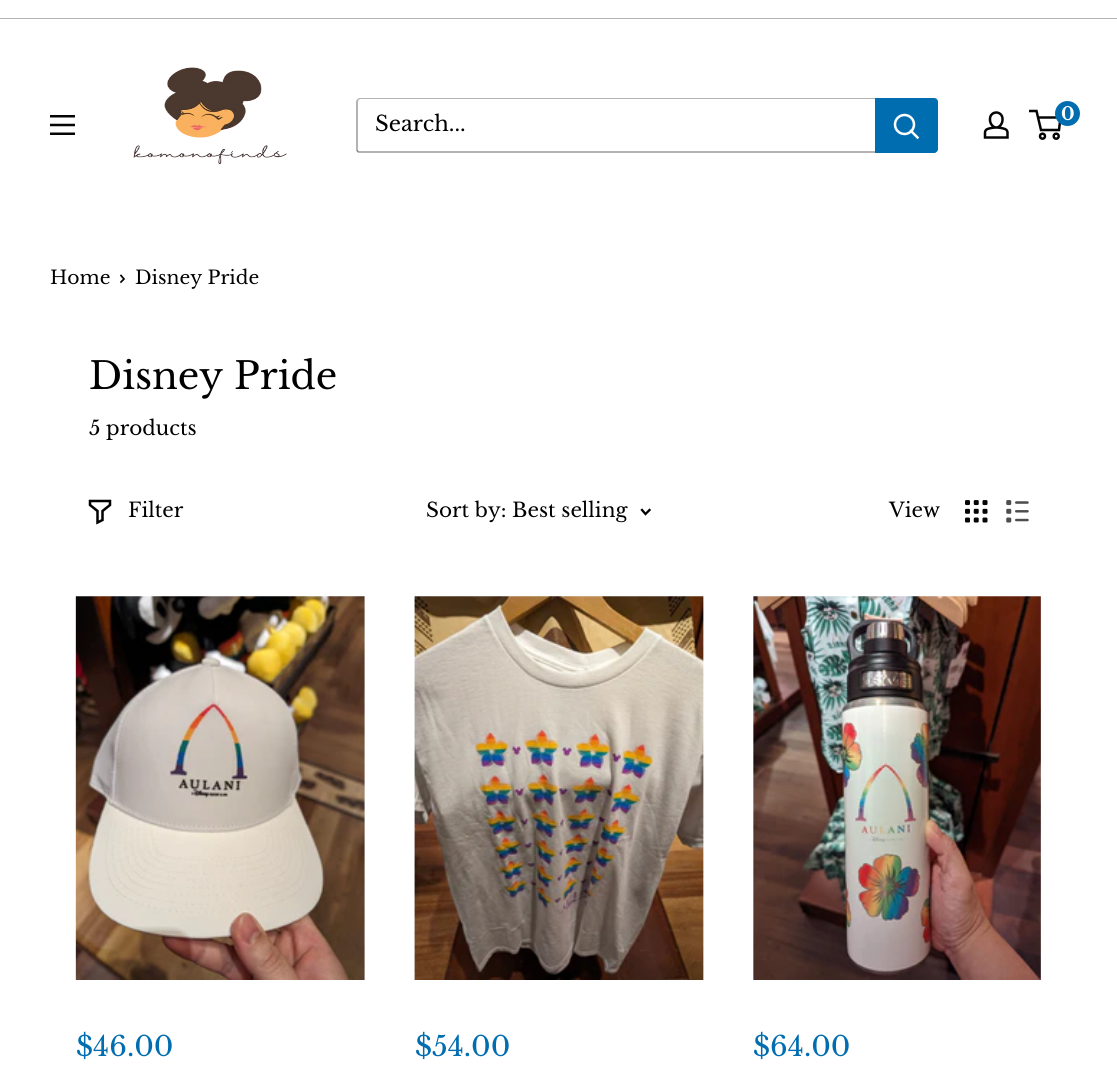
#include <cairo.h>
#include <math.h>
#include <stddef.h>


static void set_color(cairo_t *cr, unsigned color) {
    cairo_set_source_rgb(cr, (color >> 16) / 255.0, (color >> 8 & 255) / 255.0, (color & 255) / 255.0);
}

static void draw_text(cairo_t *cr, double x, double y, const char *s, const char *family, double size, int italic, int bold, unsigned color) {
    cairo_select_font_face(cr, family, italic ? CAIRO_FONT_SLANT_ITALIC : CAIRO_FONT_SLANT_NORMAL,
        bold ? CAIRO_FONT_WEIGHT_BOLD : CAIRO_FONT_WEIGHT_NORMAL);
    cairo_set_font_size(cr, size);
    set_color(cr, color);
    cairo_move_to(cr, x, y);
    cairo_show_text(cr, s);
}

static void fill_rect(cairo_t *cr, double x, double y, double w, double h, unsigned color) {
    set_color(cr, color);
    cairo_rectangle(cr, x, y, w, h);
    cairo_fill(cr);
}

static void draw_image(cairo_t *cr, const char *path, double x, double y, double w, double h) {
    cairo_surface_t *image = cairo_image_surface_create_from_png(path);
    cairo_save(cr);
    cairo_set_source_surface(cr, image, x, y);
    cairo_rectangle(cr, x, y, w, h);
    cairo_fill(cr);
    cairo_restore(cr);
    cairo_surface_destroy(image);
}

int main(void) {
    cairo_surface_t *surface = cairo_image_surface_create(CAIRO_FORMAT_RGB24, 1117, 1086);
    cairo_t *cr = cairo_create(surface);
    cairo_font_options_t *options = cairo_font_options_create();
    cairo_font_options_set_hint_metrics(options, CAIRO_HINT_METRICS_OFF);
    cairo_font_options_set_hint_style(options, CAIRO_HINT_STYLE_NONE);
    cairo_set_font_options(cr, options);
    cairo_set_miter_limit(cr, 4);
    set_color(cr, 0xFFFFFF);
    cairo_paint(cr);
    fill_rect(cr, 0, 18, 1117, 1, 0xB3B3B3);
    draw_image(cr, "assets/img1.png", 50, 115, 25, 20);
    draw_image(cr, "assets/img2.png", 133, 67, 154, 97);
    cairo_new_path(cr);
    cairo_move_to(cr, 356, 150);
    cairo_curve_to(cr, 357, 152, 358, 153, 360, 153);
    cairo_line_to(cr, 934, 153);
    cairo_curve_to(cr, 936, 153, 938, 151, 938, 149);
    cairo_line_to(cr, 938, 102);
    cairo_curve_to(cr, 938, 100, 937, 99, 936, 98);
    cairo_line_to(cr, 936, 148);
    cairo_curve_to(cr, 936, 150, 935, 151, 932, 151);
    cairo_line_to(cr, 359, 151);
    cairo_close_path(cr);
    cairo_fill(cr);
    cairo_set_source_rgba(cr, 0, 0, 0, 0.3);
    cairo_new_path(cr);
    cairo_move_to(cr, 361, 99);
    cairo_line_to(cr, 935, 99);
    cairo_line_to(cr, 937, 99);
    cairo_curve_to(cr, 936, 99, 935, 98, 934, 98);
    cairo_line_to(cr, 360, 98);
    cairo_curve_to(cr, 358, 98, 356, 100, 356, 102);
    cairo_line_to(cr, 356, 149);
    cairo_curve_to(cr, 356, 151, 357, 152, 359, 153);
    cairo_line_to(cr, 358, 150);
    cairo_line_to(cr, 358, 102);
    cairo_curve_to(cr, 358, 100, 359, 99, 361, 99);
    cairo_close_path(cr);
    cairo_fill(cr);
    draw_text(cr, 375, 131, "Search...", "Libre Baskerville", 21.25, 0, 0, 0x000000);
    set_color(cr, 0x006DB0);
    cairo_new_path(cr);
    cairo_move_to(cr, 875, 98);
    cairo_line_to(cr, 934, 98);
    cairo_curve_to(cr, 936, 98, 938, 100, 938, 102);
    cairo_line_to(cr, 938, 149);
    cairo_curve_to(cr, 938, 151, 936, 153, 934, 153);
    cairo_line_to(cr, 875, 153);
    cairo_close_path(cr);
    cairo_fill(cr);
    cairo_new_path(cr);
    cairo_move_to(cr, 917.5, 137.5);
    cairo_line_to(cr, 911, 131);
    set_color(cr, 0xFFFFFF);
    cairo_set_line_width(cr, 2.5);
    cairo_set_line_cap(cr, CAIRO_LINE_CAP_SQUARE);
    cairo_stroke(cr);
    cairo_arc(cr, 904.5, 124.5, 9.5, 0, 2 * M_PI);
    cairo_set_line_cap(cr, CAIRO_LINE_CAP_BUTT);
    cairo_stroke(cr);
    draw_image(cr, "assets/img3.png", 983, 111, 26, 28);
    cairo_arc(cr, 1042.5, 136.2, 2.5, 0, 2 * M_PI);
    set_color(cr, 0x050505);
    cairo_stroke(cr);
    cairo_arc(cr, 1056.2, 136.2, 2.5, 0, 2 * M_PI);
    cairo_stroke(cr);
    cairo_new_path(cr);
    cairo_move_to(cr, 1038, 117.5);
    cairo_line_to(cr, 1060.5, 117.5);
    cairo_line_to(cr, 1059, 130);
    cairo_line_to(cr, 1041, 130);
    cairo_line_to(cr, 1036.5, 111);
    cairo_line_to(cr, 1029, 111);
    cairo_stroke(cr);
    set_color(cr, 0x006DB0);
    cairo_arc(cr, 1067.5, 113.5, 12.5, 0, 2 * M_PI);
    cairo_fill(cr);
    draw_text(cr, 1061, 120, "0", "Libre Baskerville", 18, 0, 1, 0xFFFFFF);
    draw_text(cr, 50, 284, "Home", "Libre Baskerville", 18.75, 0, 0, 0x000000);
    cairo_new_path(cr);
    cairo_move_to(cr, 121, 275.5);
    cairo_line_to(cr, 124, 279);
    cairo_line_to(cr, 121, 282);
    cairo_set_line_width(cr, 1.7);
    cairo_set_line_cap(cr, CAIRO_LINE_CAP_SQUARE);
    cairo_stroke(cr);
    draw_text(cr, 135, 284, "Disney Pride", "Libre Baskerville", 18.75, 0, 0, 0x000000);
    draw_text(cr, 89, 389, "Disney Pride", "Libre Baskerville", 37.5, 0, 0, 0x000000);
    draw_text(cr, 89, 435, "5 products", "Libre Baskerville", 20, 0, 0, 0x000000);
    cairo_new_path(cr);
    cairo_move_to(cr, 110, 505);
    cairo_line_to(cr, 102.5, 511);
    cairo_line_to(cr, 102.5, 520);
    cairo_line_to(cr, 97.5, 522.5);
    cairo_line_to(cr, 97.5, 511);
    cairo_line_to(cr, 90, 505);
    cairo_line_to(cr, 90, 501);
    cairo_line_to(cr, 110, 501);
    cairo_close_path(cr);
    cairo_set_line_width(cr, 2.5);
    cairo_stroke(cr);
    draw_text(cr, 128, 517, "Filter", "Libre Baskerville", 20, 0, 0, 0x000000);
    draw_text(cr, 426, 517, "Sort by: Best selling", "Libre Baskerville", 20, 0, 0, 0x000000);
    cairo_new_path(cr);
    cairo_move_to(cr, 649.5, 510);
    cairo_line_to(cr, 645.5, 514);
    cairo_line_to(cr, 642, 510);
    cairo_set_line_width(cr, 2.3);
    cairo_stroke(cr);
    draw_text(cr, 889, 517, "View", "Libre Baskerville", 20, 0, 0, 0x000000);
    draw_image(cr, "assets/img4.png", 965, 500, 23, 23);
    draw_image(cr, "assets/img5.png", 1006, 500, 23, 23);
    draw_image(cr, "assets/img6.png", 75, 596, 290, 384);
    draw_text(cr, 76, 1056, "$46.00", "Libre Baskerville", 27.5, 0, 0, 0x006DB0);
    draw_image(cr, "assets/img7.png", 414, 596, 290, 384);
    draw_text(cr, 415, 1056, "$54.00", "Libre Baskerville", 27.5, 0, 0, 0x006DB0);
    draw_image(cr, "assets/img8.png", 753, 596, 288, 384);
    draw_text(cr, 753, 1056, "$64.00", "Libre Baskerville", 27.5, 0, 0, 0x006DB0);
    cairo_surface_write_to_png(surface, "output.png");
    cairo_font_options_destroy(options);
    cairo_destroy(cr);
    cairo_surface_destroy(surface);
    return 0;
}
